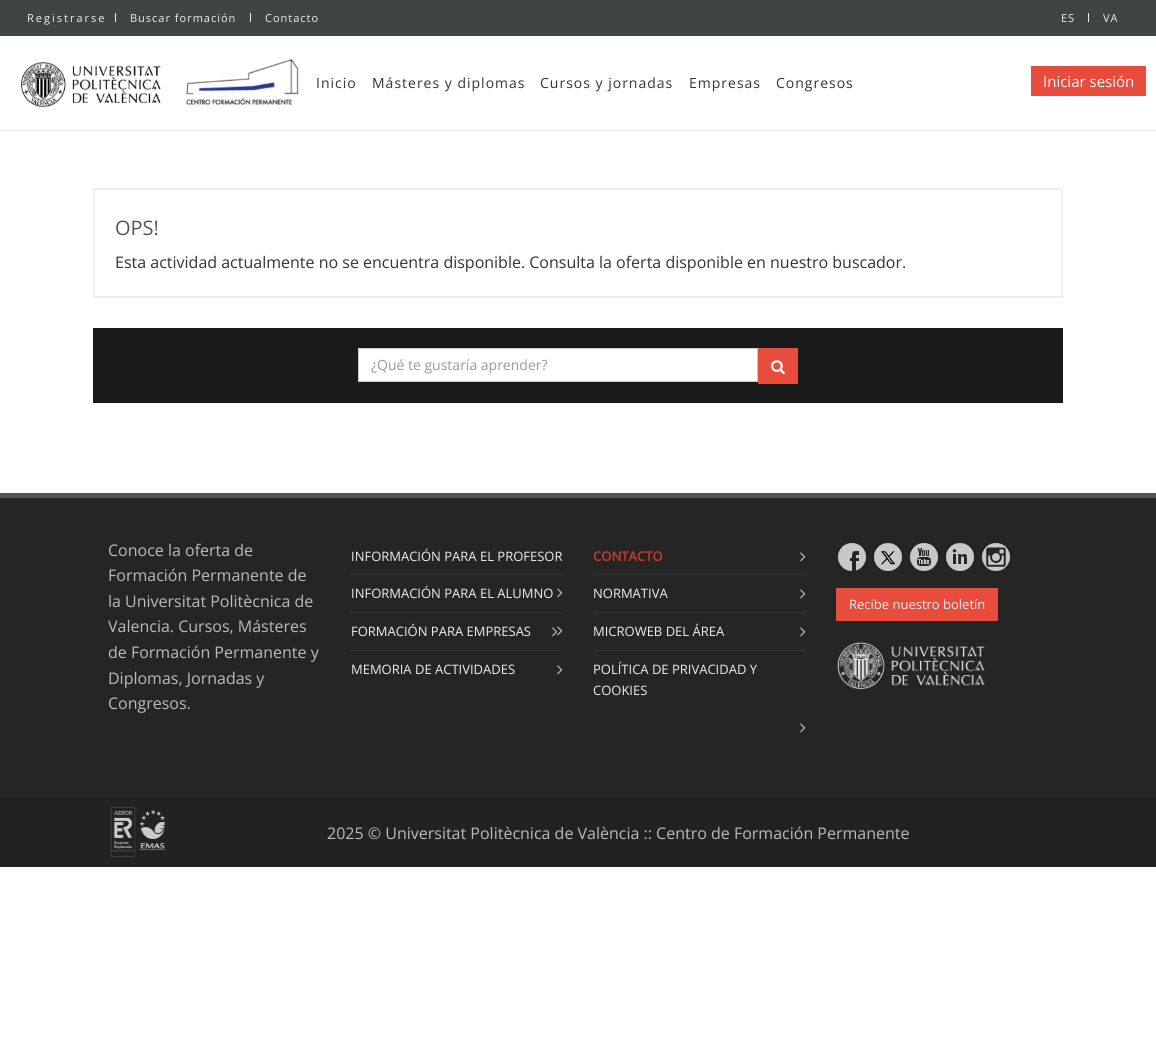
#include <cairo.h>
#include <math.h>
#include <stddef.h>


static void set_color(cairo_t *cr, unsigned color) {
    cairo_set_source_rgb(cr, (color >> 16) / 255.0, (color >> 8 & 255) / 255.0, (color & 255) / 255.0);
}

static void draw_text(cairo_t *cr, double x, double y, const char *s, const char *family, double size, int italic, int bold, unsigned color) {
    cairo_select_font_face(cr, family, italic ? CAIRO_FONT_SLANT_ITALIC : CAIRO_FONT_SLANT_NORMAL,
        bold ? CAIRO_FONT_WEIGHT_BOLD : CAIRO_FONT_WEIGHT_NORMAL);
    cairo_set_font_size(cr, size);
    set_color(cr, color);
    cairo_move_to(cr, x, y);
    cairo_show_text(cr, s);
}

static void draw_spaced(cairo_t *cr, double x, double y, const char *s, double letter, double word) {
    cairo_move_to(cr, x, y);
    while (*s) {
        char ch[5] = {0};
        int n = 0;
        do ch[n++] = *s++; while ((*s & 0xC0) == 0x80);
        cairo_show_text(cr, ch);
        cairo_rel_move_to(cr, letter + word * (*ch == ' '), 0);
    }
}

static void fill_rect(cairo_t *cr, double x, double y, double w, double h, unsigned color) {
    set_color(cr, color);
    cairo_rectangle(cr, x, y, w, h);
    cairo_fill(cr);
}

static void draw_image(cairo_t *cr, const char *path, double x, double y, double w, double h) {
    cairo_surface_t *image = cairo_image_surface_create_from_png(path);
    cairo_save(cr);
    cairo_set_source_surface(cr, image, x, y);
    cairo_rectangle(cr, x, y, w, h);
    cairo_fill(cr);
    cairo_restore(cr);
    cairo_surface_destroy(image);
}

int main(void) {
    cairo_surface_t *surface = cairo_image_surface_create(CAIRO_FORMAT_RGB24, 1156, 1061);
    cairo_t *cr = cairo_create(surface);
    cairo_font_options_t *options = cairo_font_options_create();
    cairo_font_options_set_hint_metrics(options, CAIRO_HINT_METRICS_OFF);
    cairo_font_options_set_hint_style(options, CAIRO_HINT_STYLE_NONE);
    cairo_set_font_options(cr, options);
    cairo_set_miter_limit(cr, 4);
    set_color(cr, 0xFFFFFF);
    cairo_paint(cr);
    fill_rect(cr, 0, 130, 1156, 1, 0xEEEEEE);
    fill_rect(cr, 0, 0, 1156, 36, 0x3F4444);
    cairo_select_font_face(cr, "Open Sans", CAIRO_FONT_SLANT_NORMAL, CAIRO_FONT_WEIGHT_NORMAL);
    cairo_set_font_size(cr, 11);
    set_color(cr, 0xEEEEEE);
    draw_spaced(cr, 27, 22, "Registrarse", 2, 0);
    fill_rect(cr, 115, 13, 1, 9, 0xEEEEEE);
    draw_spaced(cr, 130, 22, "Buscar formación", 1, 0);
    fill_rect(cr, 250, 13, 1, 9, 0xEEEEEE);
    draw_spaced(cr, 265, 22, "Contacto", 1, 0);
    draw_spaced(cr, 1061, 22, "ES", 1, 0);
    fill_rect(cr, 1088, 13, 1, 9, 0xEEEEEE);
    draw_spaced(cr, 1103, 22, "VA", 1, 0);
    cairo_set_font_size(cr, 14);
    set_color(cr, 0x333333);
    draw_spaced(cr, 316, 88, "Inicio", 1, 0);
    draw_spaced(cr, 372, 88, "Másteres y diplomas", 1, 0);
    draw_spaced(cr, 540, 88, "Cursos y jornadas", 1, 0);
    draw_spaced(cr, 689, 88, "Empresas", 1, 0);
    draw_spaced(cr, 776, 88, "Congresos", 1, 0);
    draw_image(cr, "assets/img1.png", 21, 58, 278, 49);
    fill_rect(cr, 1031, 66, 115, 30, 0xE74C3C);
    draw_text(cr, 1043, 87, "Iniciar sesión", "Open Sans", 15, 0, 0, 0xFFFFFF);
    cairo_rectangle(cr, 94, 189, 968, 108);
    set_color(cr, 0xEEEEEE);
    cairo_stroke(cr);
    draw_text(cr, 115, 235, "OPS!", "Open Sans", 20, 0, 0, 0x555555);
    draw_text(cr, 115, 268, "Esta actividad actualmente no se encuentra disponible. Consulta la oferta disponible en nuestro buscador.", "Open Sans", 16, 0, 0, 0x333333);
    fill_rect(cr, 93, 328, 970, 75, 0x1A1A1A);
    set_color(cr, 0xFFFFFF);
    cairo_rectangle(cr, 358.5, 348.5, 399, 33);
    cairo_fill_preserve(cr);
    set_color(cr, 0xCCCCCC);
    cairo_set_line_width(cr, 1);
    cairo_stroke(cr);
    draw_text(cr, 371, 370, "¿Qué te gustaría aprender?", "Open Sans", 14, 0, 0, 0x999999);
    fill_rect(cr, 758, 348, 40, 36, 0xE74C3C);
    draw_image(cr, "assets/img2.png", 771, 360, 14, 15);
    fill_rect(cr, 0, 498, 1156, 299, 0x252525);
    fill_rect(cr, 0, 493, 1156, 5, 0x555555);
    draw_text(cr, 108, 556, "Conoce la oferta de", "Open Sans", 16, 0, 0, 0xBBBBBB);
    draw_text(cr, 108, 581, "Formación Permanente de", "Open Sans", 16, 0, 0, 0xBBBBBB);
    draw_text(cr, 108, 607, "la Universitat Politècnica de", "Open Sans", 16, 0, 0, 0xBBBBBB);
    draw_text(cr, 108, 632, "Valencia. Cursos, Másteres", "Open Sans", 16, 0, 0, 0xBBBBBB);
    draw_text(cr, 108, 658, "de Formación Permanente y", "Open Sans", 16, 0, 0, 0xBBBBBB);
    draw_text(cr, 108, 684, "Diplomas, Jornadas y", "Open Sans", 16, 0, 0, 0xBBBBBB);
    draw_text(cr, 108, 709, "Congresos.", "Open Sans", 16, 0, 0, 0xBBBBBB);
    draw_text(cr, 351, 561, "INFORMACIÓN PARA EL PROFESOR", "Open Sans", 13, 0, 0, 0xEEEEEE);
    draw_image(cr, "assets/img3.png", 557, 588, 6, 10);
    fill_rect(cr, 351, 574, 212, 1, 0x353535);
    draw_text(cr, 351, 598, "INFORMACIÓN PARA EL ALUMNO", "Open Sans", 13, 0, 0, 0xEEEEEE);
    draw_image(cr, "assets/img3.png", 557, 626, 6, 10);
    fill_rect(cr, 351, 612, 212, 1, 0x353535);
    draw_text(cr, 351, 636, "FORMACIÓN PARA EMPRESAS", "Open Sans", 13, 0, 0, 0xEEEEEE);
    draw_image(cr, "assets/img4.png", 552, 627, 6, 10);
    fill_rect(cr, 351, 650, 212, 1, 0x353535);
    draw_text(cr, 351, 674, "MEMORIA DE ACTIVIDADES", "Open Sans", 13, 0, 0, 0xEEEEEE);
    draw_image(cr, "assets/img3.png", 557, 665, 6, 10);
    draw_text(cr, 593, 561, "CONTACTO", "Open Sans", 13, 0, 1, 0xC0392B);
    draw_image(cr, "assets/img3.png", 800, 552, 6, 10);
    fill_rect(cr, 593, 574, 213, 1, 0x353535);
    draw_text(cr, 593, 598, "NORMATIVA", "Open Sans", 13, 0, 0, 0xEEEEEE);
    draw_image(cr, "assets/img3.png", 800, 589, 6, 10);
    fill_rect(cr, 593, 612, 213, 1, 0x353535);
    draw_text(cr, 593, 636, "MICROWEB DEL ÁREA", "Open Sans", 13, 0, 0, 0xEEEEEE);
    draw_image(cr, "assets/img3.png", 800, 627, 6, 10);
    fill_rect(cr, 593, 650, 213, 1, 0x353535);
    draw_text(cr, 593, 674, "POLÍTICA DE PRIVACIDAD Y", "Open Sans", 13, 0, 0, 0xEEEEEE);
    draw_text(cr, 593, 695, "COOKIES", "Open Sans", 13, 0, 0, 0xEEEEEE);
    draw_image(cr, "assets/img3.png", 800, 723, 6, 10);
    draw_image(cr, "assets/img5.png", 838, 543, 28, 28);
    draw_image(cr, "assets/img6.png", 874, 543, 28, 28);
    draw_image(cr, "assets/img7.png", 910, 543, 28, 28);
    draw_image(cr, "assets/img8.png", 946, 543, 28, 28);
    draw_image(cr, "assets/img9.png", 982, 543, 28, 28);
    fill_rect(cr, 836, 588, 162, 33, 0xE74C3C);
    draw_text(cr, 849, 609, "Recibe nuestro boletín", "Open Sans", 13, 0, 0, 0xEEEEEE);
    draw_image(cr, "assets/img10.png", 837, 642, 148, 48);
    fill_rect(cr, 0, 797, 1156, 70, 0x222222);
    draw_image(cr, "assets/img11.png", 110, 807, 57, 50);
    draw_text(cr, 327, 839, "2025 © Universitat Politècnica de València :: Centro de Formación Permanente", "Open Sans", 16, 0, 0, 0xBBBBBB);
    cairo_surface_write_to_png(surface, "output.png");
    cairo_font_options_destroy(options);
    cairo_destroy(cr);
    cairo_surface_destroy(surface);
    return 0;
}
